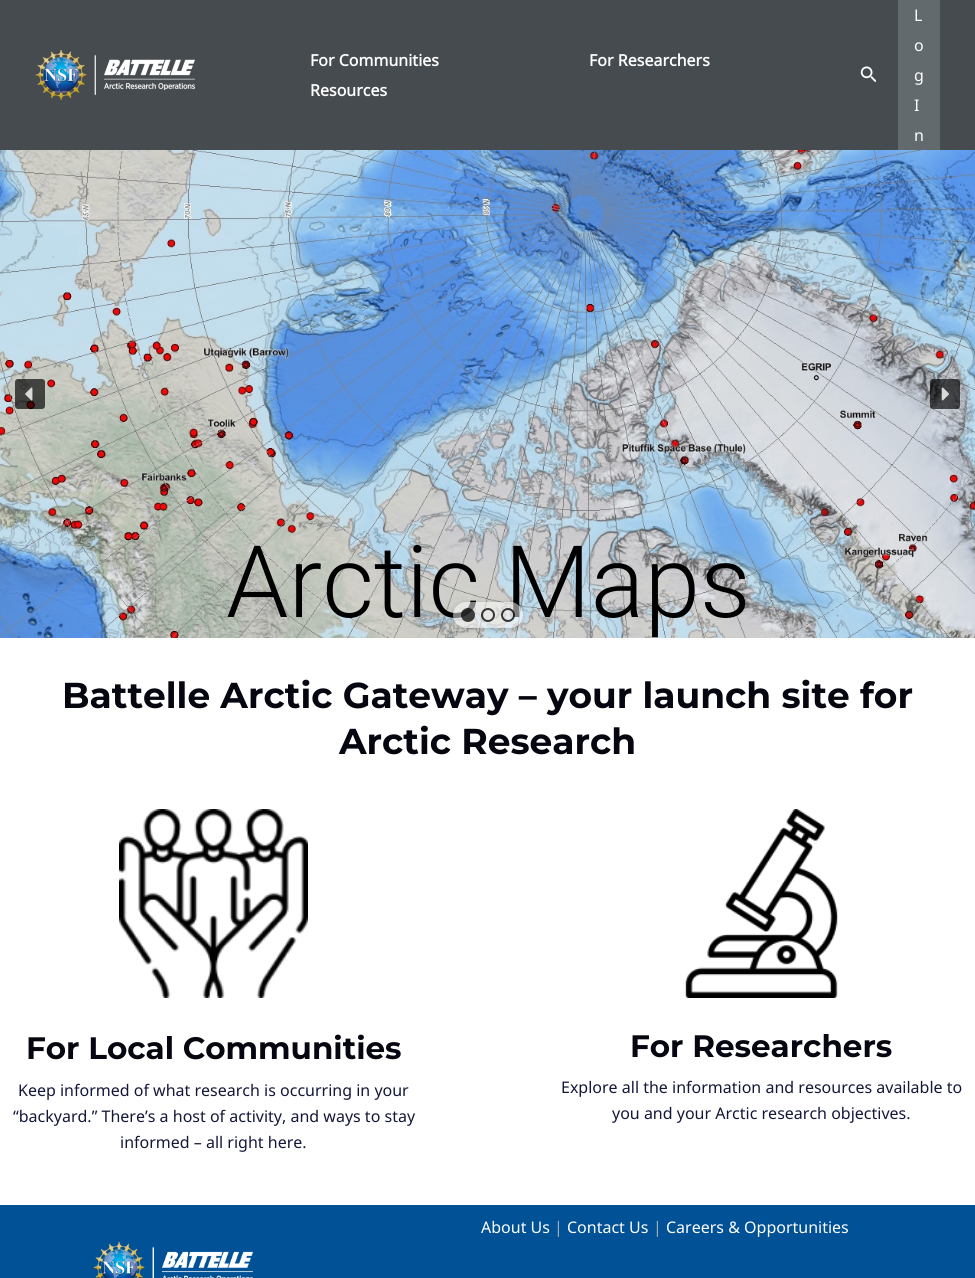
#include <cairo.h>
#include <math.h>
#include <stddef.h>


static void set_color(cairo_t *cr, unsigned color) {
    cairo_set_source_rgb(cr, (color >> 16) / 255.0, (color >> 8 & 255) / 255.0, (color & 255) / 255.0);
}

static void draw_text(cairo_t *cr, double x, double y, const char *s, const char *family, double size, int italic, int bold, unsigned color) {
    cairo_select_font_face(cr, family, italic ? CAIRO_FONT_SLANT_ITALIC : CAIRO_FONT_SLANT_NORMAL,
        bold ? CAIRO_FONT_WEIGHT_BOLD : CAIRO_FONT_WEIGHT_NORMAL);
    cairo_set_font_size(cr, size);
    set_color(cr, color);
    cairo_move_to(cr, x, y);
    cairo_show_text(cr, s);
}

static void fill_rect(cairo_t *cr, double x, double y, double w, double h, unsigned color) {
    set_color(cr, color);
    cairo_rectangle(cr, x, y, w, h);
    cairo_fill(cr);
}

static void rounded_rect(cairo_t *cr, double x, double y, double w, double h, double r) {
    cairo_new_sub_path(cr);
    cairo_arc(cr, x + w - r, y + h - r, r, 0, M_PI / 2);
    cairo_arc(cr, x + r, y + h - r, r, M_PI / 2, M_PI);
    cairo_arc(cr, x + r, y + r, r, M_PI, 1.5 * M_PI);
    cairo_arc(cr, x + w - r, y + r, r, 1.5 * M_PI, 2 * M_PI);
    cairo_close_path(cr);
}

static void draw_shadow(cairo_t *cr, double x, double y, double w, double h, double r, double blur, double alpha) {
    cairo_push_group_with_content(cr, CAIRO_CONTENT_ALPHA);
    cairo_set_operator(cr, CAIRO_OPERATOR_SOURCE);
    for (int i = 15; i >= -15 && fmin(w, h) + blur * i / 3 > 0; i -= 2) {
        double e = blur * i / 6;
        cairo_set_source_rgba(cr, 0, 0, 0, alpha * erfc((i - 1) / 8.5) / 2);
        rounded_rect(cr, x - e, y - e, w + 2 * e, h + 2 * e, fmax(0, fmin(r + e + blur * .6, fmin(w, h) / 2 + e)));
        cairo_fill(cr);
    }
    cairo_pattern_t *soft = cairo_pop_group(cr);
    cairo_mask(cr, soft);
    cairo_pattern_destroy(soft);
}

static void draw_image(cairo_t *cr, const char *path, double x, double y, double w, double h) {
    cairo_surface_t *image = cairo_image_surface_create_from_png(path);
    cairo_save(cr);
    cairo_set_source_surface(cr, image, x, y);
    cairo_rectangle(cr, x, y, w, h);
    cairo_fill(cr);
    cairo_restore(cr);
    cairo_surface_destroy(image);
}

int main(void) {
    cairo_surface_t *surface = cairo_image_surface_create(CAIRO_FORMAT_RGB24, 975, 1278);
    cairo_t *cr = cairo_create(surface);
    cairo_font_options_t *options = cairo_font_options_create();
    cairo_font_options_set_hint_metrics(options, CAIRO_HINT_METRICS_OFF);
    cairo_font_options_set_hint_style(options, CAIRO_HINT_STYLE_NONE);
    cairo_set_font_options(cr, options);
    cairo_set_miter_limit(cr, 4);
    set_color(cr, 0x005195);
    cairo_paint(cr);
    fill_rect(cr, 0, 0, 975, 150, 0x464B4F);
    draw_image(cr, "assets/img1.png", 35, 50, 160, 51);
    draw_text(cr, 310, 66, "For Communities", "Noto Sans", 16, 0, 1, 0xFFFFFF);
    draw_text(cr, 589, 66, "For Researchers", "Noto Sans", 16, 0, 1, 0xFFFFFF);
    draw_text(cr, 310, 96, "Resources", "Noto Sans", 16, 0, 1, 0xFFFFFF);
    draw_image(cr, "assets/img2.png", 860, 66, 16, 17);
    fill_rect(cr, 898, 0, 42, 150, 0x626A6E);
    draw_text(cr, 914, 21, "L", "Noto Sans", 16, 0, 0, 0xFFFFFF);
    draw_text(cr, 914, 51, "o", "Noto Sans", 16, 0, 0, 0xFFFFFF);
    draw_text(cr, 914, 81, "g", "Noto Sans", 16, 0, 0, 0xFFFFFF);
    draw_text(cr, 914, 111, "I", "Noto Sans", 16, 0, 0, 0xFFFFFF);
    draw_text(cr, 914, 141, "n", "Noto Sans", 16, 0, 0, 0xFFFFFF);
    draw_image(cr, "assets/img5.png", 0, 150, 975, 488);
    cairo_set_source_rgba(cr, 0, 0, 0, 0.67);
    rounded_rect(cr, 15, 379, 30, 30, 3);
    cairo_fill(cr);
    draw_image(cr, "assets/img3.png", 25, 387, 8, 14);
    rounded_rect(cr, 930, 379, 30, 30, 3);
    cairo_fill(cr);
    draw_image(cr, "assets/img4.png", 941, 387, 8, 14);
    draw_text(cr, 226, 617, "Arctic Maps", "Roboto Light", 100, 0, 0, 0x000000);
    cairo_save(cr);
    cairo_set_fill_rule(cr, CAIRO_FILL_RULE_EVEN_ODD);
    cairo_new_path(cr);
    cairo_move_to(cr, 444, 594);
    cairo_line_to(cr, 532, 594);
    cairo_line_to(cr, 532, 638);
    cairo_line_to(cr, 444, 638);
    cairo_close_path(cr);
    cairo_move_to(cr, 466, 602);
    cairo_line_to(cr, 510, 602);
    cairo_curve_to(cr, 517, 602, 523, 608, 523, 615);
    cairo_curve_to(cr, 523, 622, 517, 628, 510, 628);
    cairo_line_to(cr, 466, 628);
    cairo_curve_to(cr, 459, 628, 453, 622, 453, 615);
    cairo_curve_to(cr, 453, 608, 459, 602, 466, 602);
    cairo_close_path(cr);
    cairo_clip(cr);
    set_color(cr, 0x000000);
    draw_shadow(cr, 453, 603, 70, 26, 13, 2.5, 0.2);
    cairo_restore(cr);
    cairo_set_source_rgba(cr, 1, 1, 1, 0.5);
    rounded_rect(cr, 453, 602, 70, 26, 13);
    cairo_fill(cr);
    cairo_set_source_rgba(cr, 0, 0, 0, 0.73);
    cairo_arc(cr, 468, 615, 7, 0, 2 * M_PI);
    cairo_fill(cr);
    cairo_arc(cr, 488, 615, 6, 0, 2 * M_PI);
    cairo_set_source_rgba(cr, 0, 0, 0, 0.76);
    cairo_stroke(cr);
    cairo_arc(cr, 508, 615, 6, 0, 2 * M_PI);
    cairo_stroke(cr);
    fill_rect(cr, 0, 638, 975, 567, 0xFFFFFF);
    draw_text(cr, 62, 708, "Battelle Arctic Gateway – your launch site for", "Montserrat Thin", 36, 0, 0, 0x05060F);
    draw_text(cr, 339, 754, "Arctic Research", "Montserrat Thin", 36, 0, 0, 0x05060F);
    draw_image(cr, "assets/img6.png", 119, 809, 189, 189);
    draw_text(cr, 26, 1059, "For Local Communities", "Montserrat Thin", 31, 0, 0, 0x05060F);
    draw_text(cr, 18, 1096, "Keep informed of what research is occurring in your", "Noto Sans", 16, 0, 0, 0x131739);
    draw_text(cr, 13, 1122, "“backyard.” There’s a host of activity, and ways to stay", "Noto Sans", 16, 0, 0, 0x131739);
    draw_text(cr, 120, 1148, "informed – all right here.", "Noto Sans", 16, 0, 0, 0x131739);
    draw_image(cr, "assets/img7.png", 685, 809, 153, 189);
    draw_text(cr, 630, 1057, "For Researchers", "Montserrat Thin", 31, 0, 0, 0x05060F);
    draw_text(cr, 561, 1093, "Explore all the information and resources available to", "Noto Sans", 16, 0, 0, 0x131739);
    draw_text(cr, 612, 1119, "you and your Arctic research objectives.", "Noto Sans", 16, 0, 0, 0x131739);
    draw_text(cr, 481, 1233, "About Us", "Noto Sans", 16, 0, 0, 0xFFFFFF);
    draw_text(cr, 554, 1233, "|", "Noto Sans", 16, 0, 0, 0xA6ACB6);
    draw_text(cr, 567, 1233, "Contact Us", "Noto Sans", 16, 0, 0, 0xFFFFFF);
    draw_text(cr, 653, 1233, "|", "Noto Sans", 16, 0, 0, 0xA6ACB6);
    draw_text(cr, 666, 1233, "Careers & Opportunities", "Noto Sans", 16, 0, 0, 0xFFFFFF);
    draw_image(cr, "assets/img8.png", 93, 1241, 160, 37);
    cairo_surface_write_to_png(surface, "output.png");
    cairo_font_options_destroy(options);
    cairo_destroy(cr);
    cairo_surface_destroy(surface);
    return 0;
}
